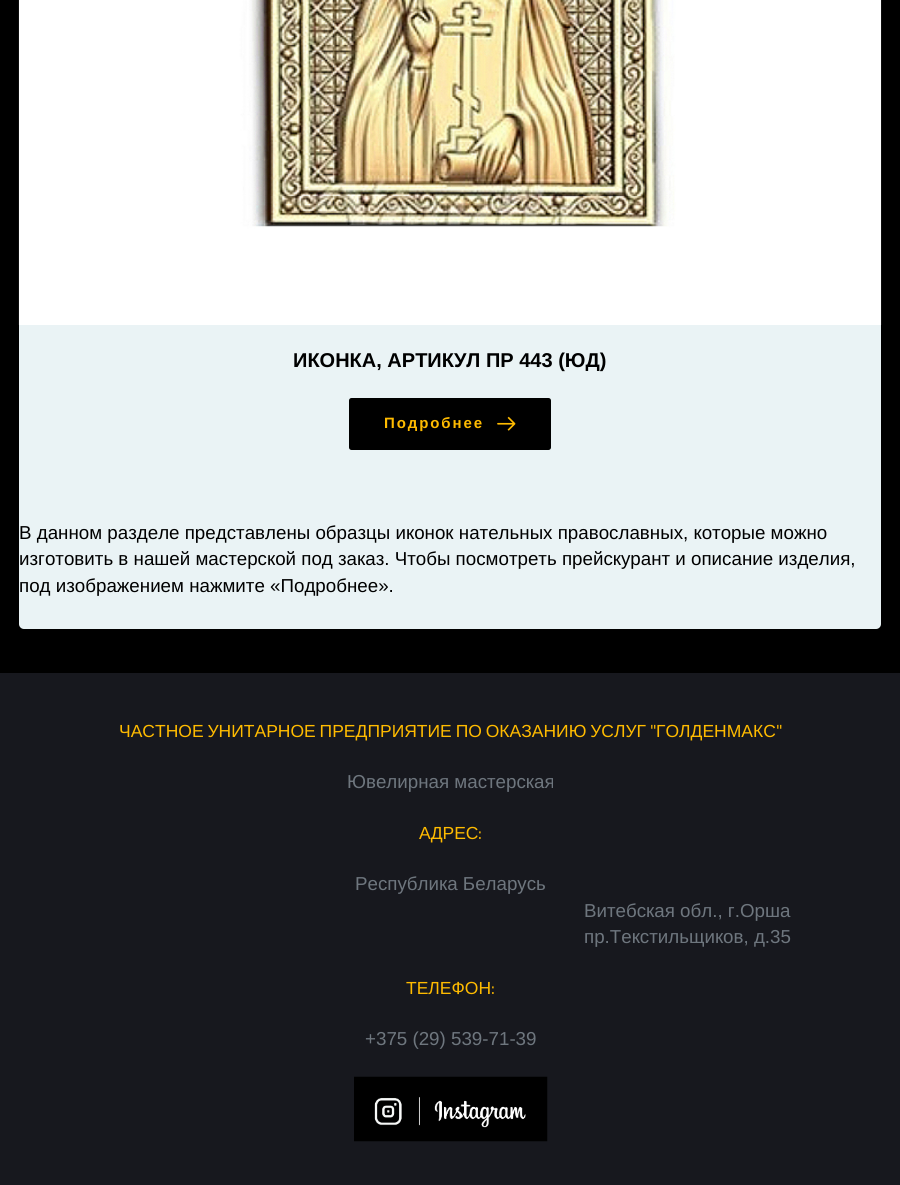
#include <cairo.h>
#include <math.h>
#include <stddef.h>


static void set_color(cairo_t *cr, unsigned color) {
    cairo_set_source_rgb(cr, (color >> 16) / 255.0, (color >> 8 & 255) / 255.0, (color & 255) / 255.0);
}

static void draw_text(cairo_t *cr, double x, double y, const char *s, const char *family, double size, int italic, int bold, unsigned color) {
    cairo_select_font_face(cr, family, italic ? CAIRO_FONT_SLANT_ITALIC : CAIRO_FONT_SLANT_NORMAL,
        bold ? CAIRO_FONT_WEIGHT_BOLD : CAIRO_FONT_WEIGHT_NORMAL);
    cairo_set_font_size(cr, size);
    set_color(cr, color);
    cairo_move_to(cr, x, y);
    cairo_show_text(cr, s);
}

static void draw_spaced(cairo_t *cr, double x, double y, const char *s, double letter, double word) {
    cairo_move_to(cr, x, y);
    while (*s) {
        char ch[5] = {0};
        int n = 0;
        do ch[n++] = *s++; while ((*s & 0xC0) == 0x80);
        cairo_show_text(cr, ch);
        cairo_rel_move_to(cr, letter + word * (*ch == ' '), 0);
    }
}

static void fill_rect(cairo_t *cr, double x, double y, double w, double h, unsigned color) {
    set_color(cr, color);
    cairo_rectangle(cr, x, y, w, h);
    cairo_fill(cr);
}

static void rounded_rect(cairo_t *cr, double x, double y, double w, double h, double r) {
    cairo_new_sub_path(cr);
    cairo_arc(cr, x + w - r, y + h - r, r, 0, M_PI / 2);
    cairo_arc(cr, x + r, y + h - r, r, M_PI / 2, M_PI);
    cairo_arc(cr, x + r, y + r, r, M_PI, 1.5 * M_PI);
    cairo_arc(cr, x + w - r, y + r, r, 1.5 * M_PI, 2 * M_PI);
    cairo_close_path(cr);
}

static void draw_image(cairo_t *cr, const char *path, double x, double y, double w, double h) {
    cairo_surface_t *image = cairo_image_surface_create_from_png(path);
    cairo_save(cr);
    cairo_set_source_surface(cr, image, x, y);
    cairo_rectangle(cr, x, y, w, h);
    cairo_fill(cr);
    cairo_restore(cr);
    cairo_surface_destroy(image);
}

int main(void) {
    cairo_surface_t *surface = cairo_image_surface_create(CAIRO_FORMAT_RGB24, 900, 1185);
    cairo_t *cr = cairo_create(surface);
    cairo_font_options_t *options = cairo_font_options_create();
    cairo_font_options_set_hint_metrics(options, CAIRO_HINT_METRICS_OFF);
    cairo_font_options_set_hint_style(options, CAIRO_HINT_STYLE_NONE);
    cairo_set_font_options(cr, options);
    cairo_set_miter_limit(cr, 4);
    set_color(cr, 0x000000);
    cairo_paint(cr);
    set_color(cr, 0xEAF3F5);
    rounded_rect(cr, 19, -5, 862, 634, 5);
    cairo_fill(cr);
    draw_image(cr, "assets/img1.png", 18, 0, 864, 325);
    draw_text(cr, 293, 367, "ИКОНКА, АРТИКУЛ ПР 443 (ЮД)", "Liberation Sans", 20, 0, 1, 0x000000);
    rounded_rect(cr, 349, 398, 202, 52, 2.5);
    cairo_fill(cr);
    cairo_set_font_size(cr, 15);
    set_color(cr, 0xFFBB00);
    draw_spaced(cr, 384, 428, "Подробнее", 1.9, 0);
    draw_image(cr, "assets/img2.png", 497, 416, 19, 15);
    draw_text(cr, 19, 539, "В данном разделе представлены образцы иконок нательных православных, которые можно", "Liberation Sans", 18.75, 0, 0, 0x000000);
    draw_text(cr, 19, 565, "изготовить в нашей мастерской под заказ. Чтобы посмотреть прейскурант и описание изделия,", "Liberation Sans", 18.75, 0, 0, 0x000000);
    draw_text(cr, 19, 592, "под изображением нажмите «Подробнее».", "Liberation Sans", 18.75, 0, 0, 0x000000);
    fill_rect(cr, 0, 673, 900, 512, 0x17181E);
    cairo_set_font_size(cr, 17.5);
    set_color(cr, 0xFFBB00);
    draw_spaced(cr, 119, 737, "ЧАСТНОЕ УНИТАРНОЕ ПРЕДПРИЯТИЕ ПО ОКАЗАНИЮ УСЛУГ", 0, -1);
    draw_text(cr, 650, 737, "\"", "Titillium Web", 17.5, 0, 0, 0xFFBB00);
    draw_text(cr, 656, 737, "ГОЛДЕНМАКС", "Liberation Sans", 17.5, 0, 0, 0xFFBB00);
    draw_text(cr, 776, 737, "\"", "Titillium Web", 17.5, 0, 0, 0xFFBB00);
    draw_text(cr, 347, 788, "Ювелирная мастерская", "Liberation Sans", 18.75, 0, 0, 0x6E767E);
    draw_text(cr, 419, 839, "АДРЕС", "Liberation Sans", 17.5, 0, 0, 0xFFBB00);
    draw_text(cr, 478, 839, ":", "Titillium Web", 17.5, 0, 0, 0xFFBB00);
    draw_text(cr, 355, 890, "Республика Беларусь", "Liberation Sans", 18.75, 0, 0, 0x6E767E);
    draw_text(cr, 584, 917, "Витебская обл., г.Орша", "Liberation Sans", 18.75, 0, 0, 0x6E767E);
    draw_text(cr, 584, 943, "пр.Текстильщиков, д.35", "Liberation Sans", 18.75, 0, 0, 0x6E767E);
    draw_text(cr, 406, 994, "ТЕЛЕФОН", "Liberation Sans", 17.5, 0, 0, 0xFFBB00);
    draw_text(cr, 491, 994, ":", "Titillium Web", 17.5, 0, 0, 0xFFBB00);
    draw_text(cr, 365, 1045, "+375 (29) 539-71-39", "Liberation Sans", 18.75, 0, 0, 0x6E767E);
    draw_image(cr, "assets/img3.png", 354, 1076, 194, 66);
    cairo_surface_write_to_png(surface, "output.png");
    cairo_font_options_destroy(options);
    cairo_destroy(cr);
    cairo_surface_destroy(surface);
    return 0;
}
